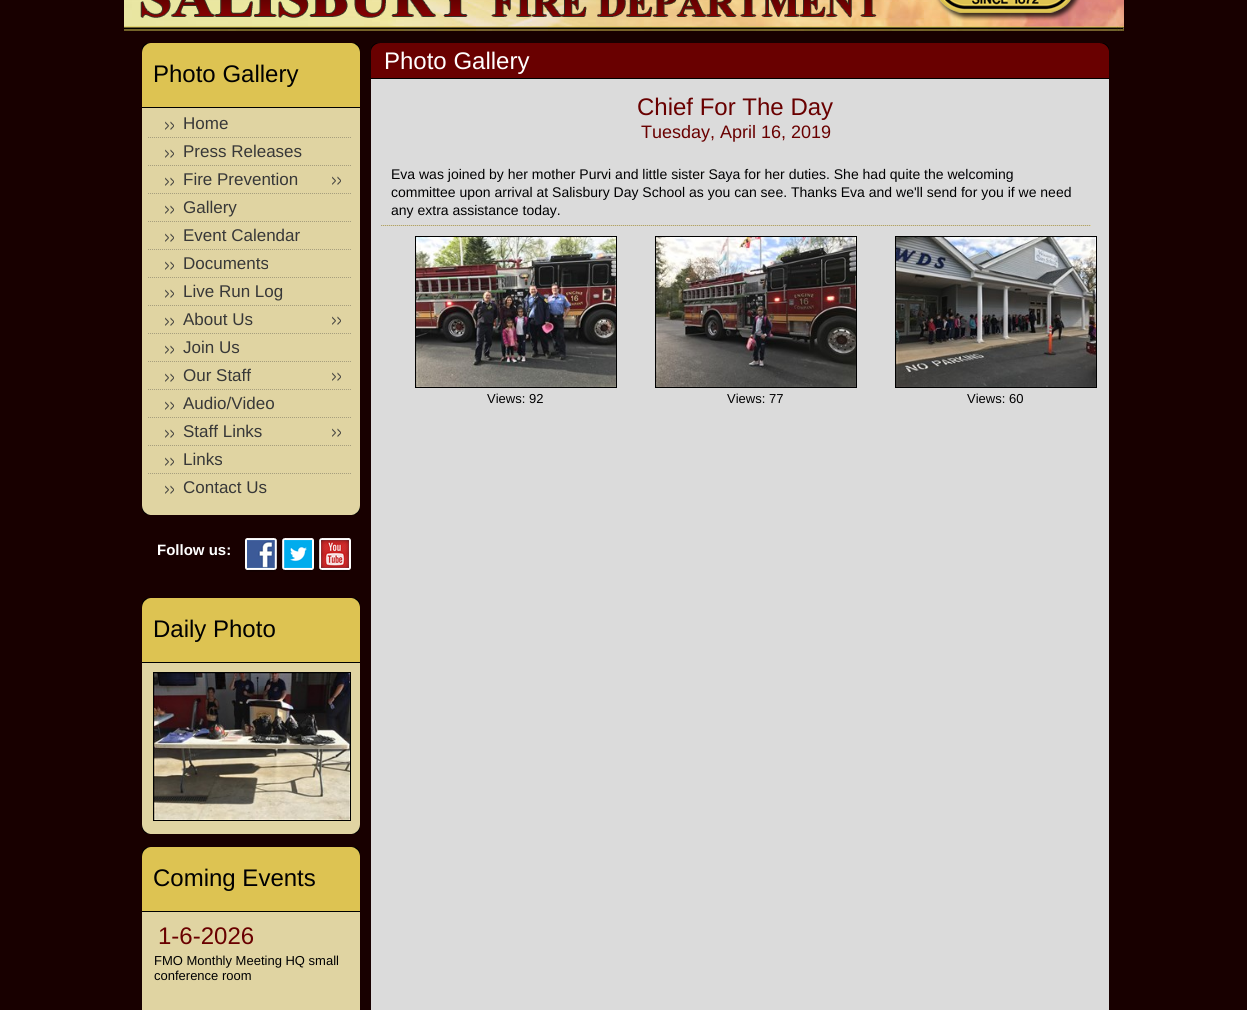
#include <cairo.h>
#include <math.h>
#include <stddef.h>


static void set_color(cairo_t *cr, unsigned color) {
    cairo_set_source_rgb(cr, (color >> 16) / 255.0, (color >> 8 & 255) / 255.0, (color & 255) / 255.0);
}

static void draw_text(cairo_t *cr, double x, double y, const char *s, const char *family, double size, int italic, int bold, unsigned color) {
    cairo_select_font_face(cr, family, italic ? CAIRO_FONT_SLANT_ITALIC : CAIRO_FONT_SLANT_NORMAL,
        bold ? CAIRO_FONT_WEIGHT_BOLD : CAIRO_FONT_WEIGHT_NORMAL);
    cairo_set_font_size(cr, size);
    set_color(cr, color);
    cairo_move_to(cr, x, y);
    cairo_show_text(cr, s);
}

static void fill_rect(cairo_t *cr, double x, double y, double w, double h, unsigned color) {
    set_color(cr, color);
    cairo_rectangle(cr, x, y, w, h);
    cairo_fill(cr);
}

static void draw_image(cairo_t *cr, const char *path, double x, double y, double w, double h) {
    cairo_surface_t *image = cairo_image_surface_create_from_png(path);
    cairo_save(cr);
    cairo_set_source_surface(cr, image, x, y);
    cairo_rectangle(cr, x, y, w, h);
    cairo_fill(cr);
    cairo_restore(cr);
    cairo_surface_destroy(image);
}

int main(void) {
    cairo_surface_t *surface = cairo_image_surface_create(CAIRO_FORMAT_RGB24, 1247, 1010);
    cairo_t *cr = cairo_create(surface);
    cairo_font_options_t *options = cairo_font_options_create();
    cairo_font_options_set_hint_metrics(options, CAIRO_HINT_METRICS_OFF);
    cairo_font_options_set_hint_style(options, CAIRO_HINT_STYLE_NONE);
    cairo_set_font_options(cr, options);
    cairo_set_miter_limit(cr, 4);
    set_color(cr, 0x180000);
    cairo_paint(cr);
    draw_image(cr, "assets/img1.png", 124, 0, 1000, 31);
    draw_image(cr, "assets/img2.png", 936, 0, 144, 21);
    draw_image(cr, "assets/img3.png", 140, 0, 737, 18);
    fill_rect(cr, 142, 108, 218, 397, 0xE0D4A2);
    draw_image(cr, "assets/img4.png", 142, 505, 218, 10);
    fill_rect(cr, 142, 53, 218, 54, 0xDDC352);
    draw_image(cr, "assets/img5.png", 142, 43, 218, 10);
    fill_rect(cr, 142, 107, 218, 1, 0x000000);
    draw_text(cr, 153, 82, "Photo Gallery", "Liberation Sans", 24, 0, 0, 0x000001);
    draw_image(cr, "assets/img6.png", 165, 121, 9, 9);
    draw_text(cr, 183, 129, "Home", "Liberation Sans", 17, 0, 0, 0x383838);
    draw_image(cr, "assets/img7.png", 148, 137, 203, 1);
    draw_image(cr, "assets/img6.png", 165, 149, 9, 9);
    draw_text(cr, 183, 157, "Press Releases", "Liberation Sans", 17, 0, 0, 0x383838);
    draw_image(cr, "assets/img7.png", 148, 165, 203, 1);
    draw_image(cr, "assets/img6.png", 165, 177, 9, 9);
    draw_image(cr, "assets/img6.png", 332, 176, 9, 9);
    draw_text(cr, 183, 185, "Fire Prevention", "Liberation Sans", 17, 0, 0, 0x383838);
    draw_image(cr, "assets/img7.png", 148, 193, 203, 1);
    draw_image(cr, "assets/img6.png", 165, 205, 9, 9);
    draw_text(cr, 183, 213, "Gallery", "Liberation Sans", 17, 0, 0, 0x383838);
    draw_image(cr, "assets/img7.png", 148, 221, 203, 1);
    draw_image(cr, "assets/img6.png", 165, 233, 9, 9);
    draw_text(cr, 183, 241, "Event Calendar", "Liberation Sans", 17, 0, 0, 0x383838);
    draw_image(cr, "assets/img7.png", 148, 249, 203, 1);
    draw_image(cr, "assets/img6.png", 165, 261, 9, 9);
    draw_text(cr, 183, 269, "Documents", "Liberation Sans", 17, 0, 0, 0x383838);
    draw_image(cr, "assets/img7.png", 148, 277, 203, 1);
    draw_image(cr, "assets/img6.png", 165, 289, 9, 9);
    draw_text(cr, 183, 297, "Live Run Log", "Liberation Sans", 17, 0, 0, 0x383838);
    draw_image(cr, "assets/img7.png", 148, 305, 203, 1);
    draw_image(cr, "assets/img6.png", 165, 317, 9, 9);
    draw_image(cr, "assets/img6.png", 332, 316, 9, 9);
    draw_text(cr, 183, 325, "About Us", "Liberation Sans", 17, 0, 0, 0x383838);
    draw_image(cr, "assets/img7.png", 148, 333, 203, 1);
    draw_image(cr, "assets/img6.png", 165, 345, 9, 9);
    draw_text(cr, 183, 353, "Join Us", "Liberation Sans", 17, 0, 0, 0x383838);
    draw_image(cr, "assets/img7.png", 148, 361, 203, 1);
    draw_image(cr, "assets/img6.png", 165, 373, 9, 9);
    draw_image(cr, "assets/img6.png", 332, 372, 9, 9);
    draw_text(cr, 183, 381, "Our Staff", "Liberation Sans", 17, 0, 0, 0x383838);
    draw_image(cr, "assets/img7.png", 148, 389, 203, 1);
    draw_image(cr, "assets/img6.png", 165, 401, 9, 9);
    draw_text(cr, 183, 409, "Audio/Video", "Liberation Sans", 17, 0, 0, 0x383838);
    draw_image(cr, "assets/img7.png", 148, 417, 203, 1);
    draw_image(cr, "assets/img6.png", 165, 429, 9, 9);
    draw_image(cr, "assets/img6.png", 332, 428, 9, 9);
    draw_text(cr, 183, 437, "Staff Links", "Liberation Sans", 17, 0, 0, 0x383838);
    draw_image(cr, "assets/img7.png", 148, 445, 203, 1);
    draw_image(cr, "assets/img6.png", 165, 457, 9, 9);
    draw_text(cr, 183, 465, "Links", "Liberation Sans", 17, 0, 0, 0x383838);
    draw_image(cr, "assets/img7.png", 148, 473, 203, 1);
    draw_image(cr, "assets/img6.png", 165, 485, 9, 9);
    draw_text(cr, 183, 493, "Contact Us", "Liberation Sans", 17, 0, 0, 0x383838);
    draw_text(cr, 157, 555, "Follow us:", "Liberation Sans", 15, 0, 1, 0xFFFFFF);
    draw_image(cr, "assets/img8.png", 245, 538, 32, 34);
    draw_image(cr, "assets/img9.png", 282, 538, 32, 34);
    draw_image(cr, "assets/img10.png", 319, 538, 32, 34);
    fill_rect(cr, 142, 663, 218, 161, 0xE0D4A2);
    draw_image(cr, "assets/img4.png", 142, 824, 218, 10);
    fill_rect(cr, 142, 608, 218, 54, 0xDDC352);
    draw_image(cr, "assets/img5.png", 142, 598, 218, 10);
    fill_rect(cr, 142, 662, 218, 1, 0x000000);
    draw_text(cr, 153, 637, "Daily Photo", "Liberation Sans", 24, 0, 0, 0x000001);
    cairo_rectangle(cr, 153.5, 672.5, 197, 148);
    set_color(cr, 0x000000);
    cairo_set_line_width(cr, 1);
    cairo_stroke(cr);
    draw_image(cr, "assets/img11.png", 154, 673, 196, 147);
    fill_rect(cr, 142, 912, 218, 98, 0xE0D4A2);
    fill_rect(cr, 142, 857, 218, 54, 0xDDC352);
    draw_image(cr, "assets/img5.png", 142, 847, 218, 10);
    fill_rect(cr, 142, 911, 218, 1, 0x000000);
    draw_text(cr, 153, 886, "Coming Events", "Liberation Sans", 24, 0, 0, 0x000001);
    draw_text(cr, 158, 944, "1-6-2026", "Liberation Sans", 24, 0, 0, 0x690000);
    draw_text(cr, 154, 965, "FMO Monthly Meeting HQ small", "Liberation Sans", 13, 0, 0, 0x000001);
    draw_text(cr, 154, 980, "conference room", "Liberation Sans", 13, 0, 0, 0x000001);
    fill_rect(cr, 371, 79, 738, 931, 0xDBDBDB);
    fill_rect(cr, 371, 51, 738, 27, 0x690000);
    draw_image(cr, "assets/img12.png", 371, 43, 738, 8);
    fill_rect(cr, 371, 78, 738, 1, 0x000000);
    draw_text(cr, 384, 69, "Photo Gallery", "Liberation Sans", 24, 0, 0, 0xFFFFFF);
    draw_text(cr, 637, 115, "Chief For The Day", "Liberation Sans", 24, 0, 0, 0x690000);
    draw_text(cr, 641, 138, "Tuesday, April 16, 2019", "Liberation Sans", 18, 0, 0, 0x690000);
    draw_text(cr, 391, 179, "Eva was joined by her mother Purvi and little sister Saya for her duties. She had quite the welcoming", "Liberation Sans", 14, 0, 0, 0x000001);
    draw_text(cr, 391, 197, "committee upon arrival at Salisbury Day School as you can see. Thanks Eva and we'll send for you if we need", "Liberation Sans", 14, 0, 0, 0x000001);
    draw_text(cr, 391, 215, "any extra assistance today.", "Liberation Sans", 14, 0, 0, 0x000001);
    draw_image(cr, "assets/img13.png", 381, 225, 710, 1);
    cairo_rectangle(cr, 415.5, 236.5, 201, 151);
    set_color(cr, 0x000000);
    cairo_stroke(cr);
    draw_image(cr, "assets/img14.png", 416, 237, 200, 150);
    draw_text(cr, 487, 403, "Views: 92", "Liberation Sans", 13, 0, 0, 0x000001);
    cairo_rectangle(cr, 655.5, 236.5, 201, 151);
    set_color(cr, 0x000000);
    cairo_stroke(cr);
    draw_image(cr, "assets/img15.png", 656, 237, 200, 150);
    draw_text(cr, 727, 403, "Views: 77", "Liberation Sans", 13, 0, 0, 0x000001);
    cairo_rectangle(cr, 895.5, 236.5, 201, 151);
    set_color(cr, 0x000000);
    cairo_stroke(cr);
    draw_image(cr, "assets/img16.png", 896, 237, 200, 150);
    draw_text(cr, 967, 403, "Views: 60", "Liberation Sans", 13, 0, 0, 0x000001);
    cairo_surface_write_to_png(surface, "output.png");
    cairo_font_options_destroy(options);
    cairo_destroy(cr);
    cairo_surface_destroy(surface);
    return 0;
}
